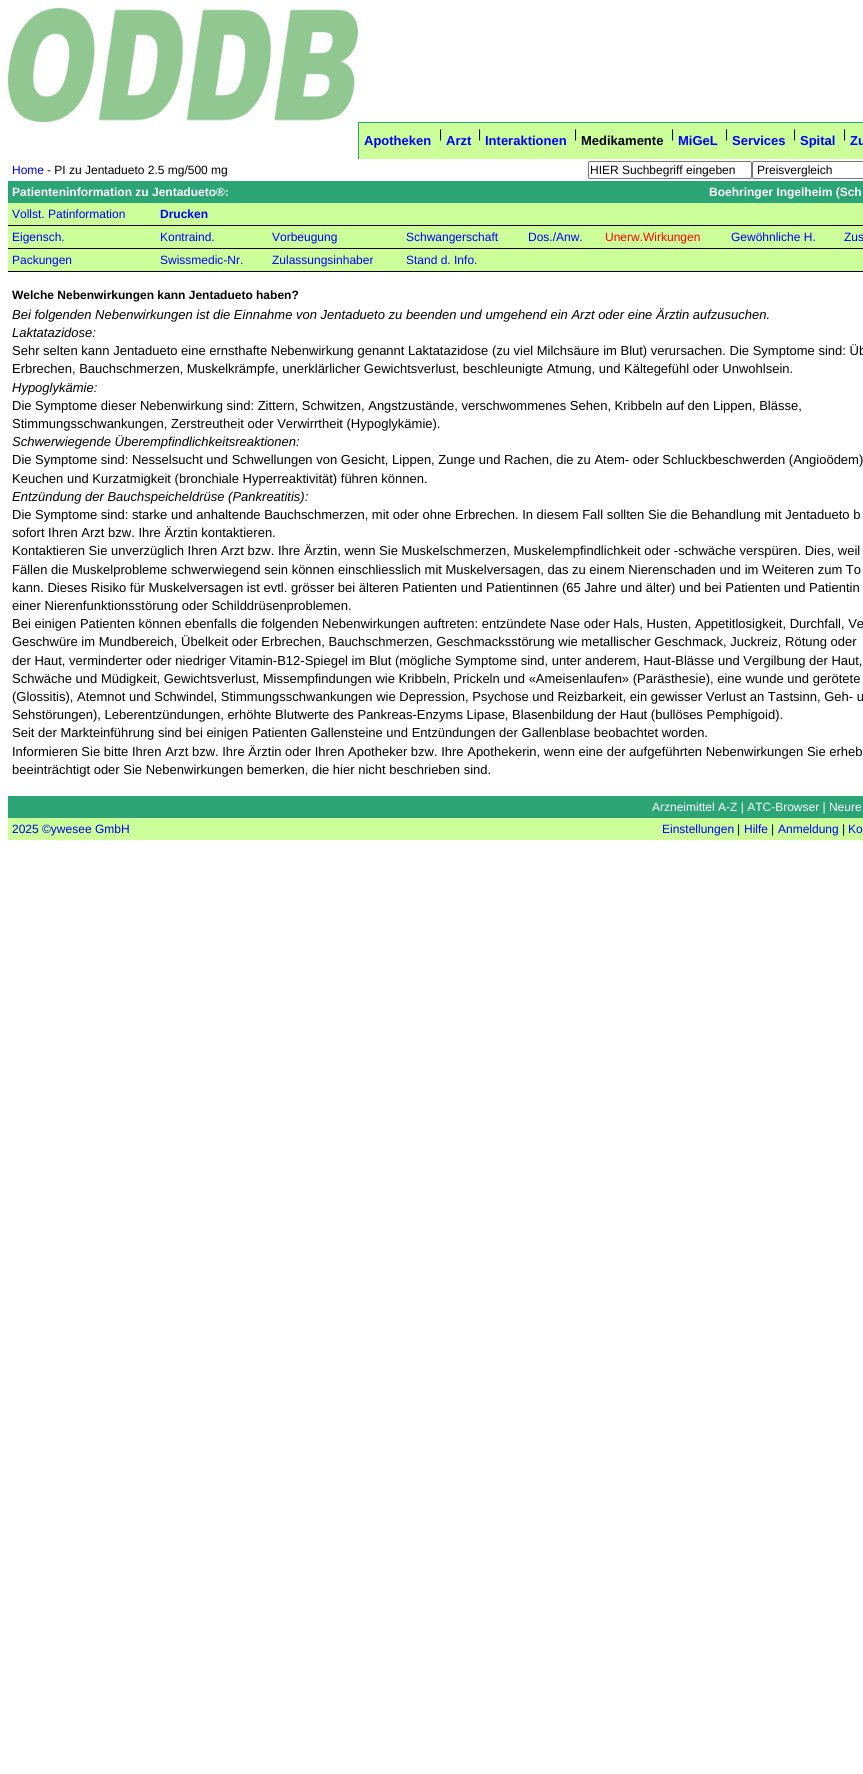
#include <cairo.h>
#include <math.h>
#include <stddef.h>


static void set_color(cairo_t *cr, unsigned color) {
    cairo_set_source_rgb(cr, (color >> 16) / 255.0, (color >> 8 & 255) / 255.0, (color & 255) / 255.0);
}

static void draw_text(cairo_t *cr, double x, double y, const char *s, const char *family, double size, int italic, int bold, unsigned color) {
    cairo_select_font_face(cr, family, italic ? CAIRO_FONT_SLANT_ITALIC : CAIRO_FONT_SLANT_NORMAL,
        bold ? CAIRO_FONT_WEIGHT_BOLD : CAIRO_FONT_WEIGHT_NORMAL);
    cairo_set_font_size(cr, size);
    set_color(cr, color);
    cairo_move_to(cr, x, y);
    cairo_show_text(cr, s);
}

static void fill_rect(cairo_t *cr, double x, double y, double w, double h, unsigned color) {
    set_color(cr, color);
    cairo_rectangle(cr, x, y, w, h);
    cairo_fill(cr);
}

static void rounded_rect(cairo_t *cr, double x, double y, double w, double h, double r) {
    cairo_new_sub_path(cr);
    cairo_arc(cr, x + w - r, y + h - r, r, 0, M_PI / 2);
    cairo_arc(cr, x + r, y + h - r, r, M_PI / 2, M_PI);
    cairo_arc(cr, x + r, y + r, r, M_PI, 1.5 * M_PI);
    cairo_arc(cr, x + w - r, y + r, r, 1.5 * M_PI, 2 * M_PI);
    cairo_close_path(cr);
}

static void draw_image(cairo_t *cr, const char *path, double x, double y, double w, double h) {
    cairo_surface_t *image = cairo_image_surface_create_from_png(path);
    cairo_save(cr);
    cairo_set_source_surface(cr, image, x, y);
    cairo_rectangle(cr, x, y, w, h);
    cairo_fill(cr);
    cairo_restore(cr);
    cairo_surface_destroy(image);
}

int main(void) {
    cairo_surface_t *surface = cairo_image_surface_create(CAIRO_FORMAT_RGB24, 863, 1774);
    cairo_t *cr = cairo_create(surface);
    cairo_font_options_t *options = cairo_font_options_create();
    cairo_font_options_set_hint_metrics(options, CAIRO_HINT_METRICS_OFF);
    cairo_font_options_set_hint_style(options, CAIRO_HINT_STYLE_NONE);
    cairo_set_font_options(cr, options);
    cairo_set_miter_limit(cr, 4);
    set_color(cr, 0xFFFFFF);
    cairo_paint(cr);
    draw_image(cr, "assets/img1.png", 8, 8, 350, 114);
    fill_rect(cr, 359, 123, 504, 36, 0xCCFF99);
    fill_rect(cr, 358, 122, 505, 1, 0x2BA476);
    fill_rect(cr, 358, 122, 1, 37, 0x2BA476);
    draw_text(cr, 364, 145, "Apotheken", "Liberation Sans", 13, 0, 1, 0x0000FF);
    draw_text(cr, 439, 138, "|", "Liberation Sans", 12, 0, 0, 0x000000);
    draw_text(cr, 446, 145, "Arzt", "Liberation Sans", 13, 0, 1, 0x0000FF);
    draw_text(cr, 478, 138, "|", "Liberation Sans", 12, 0, 0, 0x000000);
    draw_text(cr, 485, 145, "Interaktionen", "Liberation Sans", 13, 0, 1, 0x0000FF);
    draw_text(cr, 574, 138, "|", "Liberation Sans", 12, 0, 0, 0x000000);
    draw_text(cr, 581, 145, "Medikamente", "Liberation Sans", 13, 0, 1, 0x000000);
    draw_text(cr, 671, 138, "|", "Liberation Sans", 12, 0, 0, 0x000000);
    draw_text(cr, 678, 145, "MiGeL", "Liberation Sans", 13, 0, 1, 0x0000FF);
    draw_text(cr, 725, 138, "|", "Liberation Sans", 12, 0, 0, 0x000000);
    draw_text(cr, 732, 145, "Services", "Liberation Sans", 13, 0, 1, 0x0000FF);
    draw_text(cr, 793, 138, "|", "Liberation Sans", 12, 0, 0, 0x000000);
    draw_text(cr, 800, 145, "Spital", "Liberation Sans", 13, 0, 1, 0x0000FF);
    draw_text(cr, 843, 138, "|", "Liberation Sans", 12, 0, 0, 0x000000);
    draw_text(cr, 850, 145, "Zu", "Liberation Sans", 13, 0, 1, 0x0000FF);
    draw_text(cr, 12, 174, "Home", "Liberation Sans", 12, 0, 0, 0x0000EE);
    draw_text(cr, 47, 174, "- PI zu Jentadueto 2.5 mg/500 mg", "Liberation Sans", 12, 0, 0, 0x000000);
    rounded_rect(cr, 588.5, 161.5, 163, 17, 1.5);
    set_color(cr, 0x767676);
    cairo_set_line_width(cr, 1);
    cairo_stroke(cr);
    draw_text(cr, 590, 174, "HIER Suchbegriff eingeben", "Liberation Sans", 12, 0, 0, 0x000000);
    rounded_rect(cr, 752.5, 161.5, 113, 17, 1.5);
    set_color(cr, 0x767676);
    cairo_stroke(cr);
    draw_text(cr, 757, 174, "Preisvergleich", "Liberation Sans", 12, 0, 0, 0x000000);
    fill_rect(cr, 8, 181, 855, 22, 0x2BA476);
    draw_text(cr, 12, 196, "Patienteninformation zu Jentadueto®:", "Liberation Sans", 12, 0, 1, 0xFFFFFF);
    draw_text(cr, 709, 196, "Boehringer Ingelheim (Sch", "Liberation Sans", 12, 0, 1, 0xFFFFFF);
    fill_rect(cr, 8, 203, 855, 22, 0xCCFF99);
    fill_rect(cr, 8, 225, 855, 1, 0x000000);
    draw_text(cr, 12, 218, "Vollst. Patinformation", "Liberation Sans", 12, 0, 0, 0x0000FF);
    draw_text(cr, 160, 218, "Drucken", "Liberation Sans", 12, 0, 1, 0x0000FF);
    fill_rect(cr, 8, 226, 855, 22, 0xCCFF99);
    fill_rect(cr, 8, 248, 855, 1, 0x000000);
    draw_text(cr, 12, 241, "Eigensch.", "Liberation Sans", 12, 0, 0, 0x0000FF);
    draw_text(cr, 160, 241, "Kontraind.", "Liberation Sans", 12, 0, 0, 0x0000FF);
    draw_text(cr, 272, 241, "Vorbeugung", "Liberation Sans", 12, 0, 0, 0x0000FF);
    draw_text(cr, 406, 241, "Schwangerschaft", "Liberation Sans", 12, 0, 0, 0x0000FF);
    draw_text(cr, 528, 241, "Dos./Anw.", "Liberation Sans", 12, 0, 0, 0x0000FF);
    draw_text(cr, 605, 241, "Unerw.Wirkungen", "Liberation Sans", 12, 0, 0, 0xFF0000);
    draw_text(cr, 731, 241, "Gewöhnliche H.", "Liberation Sans", 12, 0, 0, 0x0000FF);
    draw_text(cr, 844, 241, "Zus", "Liberation Sans", 12, 0, 0, 0x0000FF);
    fill_rect(cr, 8, 249, 855, 22, 0xCCFF99);
    fill_rect(cr, 8, 271, 855, 1, 0x000000);
    draw_text(cr, 12, 264, "Packungen", "Liberation Sans", 12, 0, 0, 0x0000FF);
    draw_text(cr, 160, 264, "Swissmedic-Nr.", "Liberation Sans", 12, 0, 0, 0x0000FF);
    draw_text(cr, 272, 264, "Zulassungsinhaber", "Liberation Sans", 12, 0, 0, 0x0000FF);
    draw_text(cr, 406, 264, "Stand d. Info.", "Liberation Sans", 12, 0, 0, 0x0000FF);
    draw_text(cr, 12, 299, "Welche Nebenwirkungen kann Jentadueto haben?", "Liberation Sans", 12, 0, 1, 0x000000);
    draw_text(cr, 12, 319, "Bei folgenden Nebenwirkungen ist die Einnahme von Jentadueto zu beenden und umgehend ein Arzt oder eine Ärztin aufzusuchen.", "Liberation Sans", 13, 1, 0, 0x000000);
    draw_text(cr, 12, 337, "Laktatazidose:", "Liberation Sans", 13, 1, 0, 0x000000);
    draw_text(cr, 12, 355, "Sehr selten kann Jentadueto eine ernsthafte Nebenwirkung genannt Laktatazidose (zu viel Milchsäure im Blut) verursachen. Die Symptome sind: Üb", "Liberation Sans", 13, 0, 0, 0x000000);
    draw_text(cr, 12, 373, "Erbrechen, Bauchschmerzen, Muskelkrämpfe, unerklärlicher Gewichtsverlust, beschleunigte Atmung, und Kältegefühl oder Unwohlsein.", "Liberation Sans", 13, 0, 0, 0x000000);
    draw_text(cr, 12, 392, "Hypoglykämie:", "Liberation Sans", 13, 1, 0, 0x000000);
    draw_text(cr, 12, 410, "Die Symptome dieser Nebenwirkung sind: Zittern, Schwitzen, Angstzustände, verschwommenes Sehen, Kribbeln auf den Lippen, Blässe,", "Liberation Sans", 13, 0, 0, 0x000000);
    draw_text(cr, 12, 428, "Stimmungsschwankungen, Zerstreutheit oder Verwirrtheit (Hypoglykämie).", "Liberation Sans", 13, 0, 0, 0x000000);
    draw_text(cr, 12, 446, "Schwerwiegende Überempfindlichkeitsreaktionen:", "Liberation Sans", 13, 1, 0, 0x000000);
    draw_text(cr, 12, 464, "Die Symptome sind: Nesselsucht und Schwellungen von Gesicht, Lippen, Zunge und Rachen, die zu Atem- oder Schluckbeschwerden (Angioödem)", "Liberation Sans", 13, 0, 0, 0x000000);
    draw_text(cr, 12, 483, "Keuchen und Kurzatmigkeit (bronchiale Hyperreaktivität) führen können.", "Liberation Sans", 13, 0, 0, 0x000000);
    draw_text(cr, 12, 501, "Entzündung der Bauchspeicheldrüse (Pankreatitis):", "Liberation Sans", 13, 1, 0, 0x000000);
    draw_text(cr, 12, 519, "Die Symptome sind: starke und anhaltende Bauchschmerzen, mit oder ohne Erbrechen. In diesem Fall sollten Sie die Behandlung mit Jentadueto b", "Liberation Sans", 13, 0, 0, 0x000000);
    draw_text(cr, 12, 537, "sofort Ihren Arzt bzw. Ihre Ärztin kontaktieren.", "Liberation Sans", 13, 0, 0, 0x000000);
    draw_text(cr, 12, 555, "Kontaktieren Sie unverzüglich Ihren Arzt bzw. Ihre Ärztin, wenn Sie Muskelschmerzen, Muskelempfindlichkeit oder -schwäche verspüren. Dies, weil", "Liberation Sans", 13, 0, 0, 0x000000);
    draw_text(cr, 12, 574, "Fällen die Muskelprobleme schwerwiegend sein können einschliesslich mit Muskelversagen, das zu einem Nierenschaden und im Weiteren zum To", "Liberation Sans", 13, 0, 0, 0x000000);
    draw_text(cr, 12, 592, "kann. Dieses Risiko für Muskelversagen ist evtl. grösser bei älteren Patienten und Patientinnen (65 Jahre und älter) und bei Patienten und Patientin", "Liberation Sans", 13, 0, 0, 0x000000);
    draw_text(cr, 12, 610, "einer Nierenfunktionsstörung oder Schilddrüsenproblemen.", "Liberation Sans", 13, 0, 0, 0x000000);
    draw_text(cr, 12, 628, "Bei einigen Patienten können ebenfalls die folgenden Nebenwirkungen auftreten: entzündete Nase oder Hals, Husten, Appetitlosigkeit, Durchfall, Ve", "Liberation Sans", 13, 0, 0, 0x000000);
    draw_text(cr, 12, 646, "Geschwüre im Mundbereich, Übelkeit oder Erbrechen, Bauchschmerzen, Geschmacksstörung wie metallischer Geschmack, Juckreiz, Rötung oder", "Liberation Sans", 13, 0, 0, 0x000000);
    draw_text(cr, 12, 665, "der Haut, verminderter oder niedriger Vitamin-B12-Spiegel im Blut (mögliche Symptome sind, unter anderem, Haut-Blässe und Vergilbung der Haut,", "Liberation Sans", 13, 0, 0, 0x000000);
    draw_text(cr, 12, 683, "Schwäche und Müdigkeit, Gewichtsverlust, Missempfindungen wie Kribbeln, Prickeln und «Ameisenlaufen» (Parästhesie), eine wunde und gerötete", "Liberation Sans", 13, 0, 0, 0x000000);
    draw_text(cr, 12, 701, "(Glossitis), Atemnot und Schwindel, Stimmungsschwankungen wie Depression, Psychose und Reizbarkeit, ein gewisser Verlust an Tastsinn, Geh- u", "Liberation Sans", 13, 0, 0, 0x000000);
    draw_text(cr, 12, 719, "Sehstörungen), Leberentzündungen, erhöhte Blutwerte des Pankreas-Enzyms Lipase, Blasenbildung der Haut (bullöses Pemphigoid).", "Liberation Sans", 13, 0, 0, 0x000000);
    draw_text(cr, 12, 737, "Seit der Markteinführung sind bei einigen Patienten Gallensteine und Entzündungen der Gallenblase beobachtet worden.", "Liberation Sans", 13, 0, 0, 0x000000);
    draw_text(cr, 12, 756, "Informieren Sie bitte Ihren Arzt bzw. Ihre Ärztin oder Ihren Apotheker bzw. Ihre Apothekerin, wenn eine der aufgeführten Nebenwirkungen Sie erheb", "Liberation Sans", 13, 0, 0, 0x000000);
    draw_text(cr, 12, 774, "beeinträchtigt oder Sie Nebenwirkungen bemerken, die hier nicht beschrieben sind.", "Liberation Sans", 13, 0, 0, 0x000000);
    fill_rect(cr, 8, 796, 855, 22, 0x2BA476);
    draw_text(cr, 652, 811, "Arzneimittel A-Z | ATC-Browser | Neure", "Liberation Sans", 12, 0, 0, 0xFFFFFF);
    fill_rect(cr, 8, 818, 855, 22, 0xCCFF99);
    draw_text(cr, 12, 833, "2025 ©ywesee GmbH", "Liberation Sans", 12, 0, 0, 0x0000EE);
    draw_text(cr, 662, 833, "Einstellungen", "Liberation Sans", 12, 0, 0, 0x0000FF);
    draw_text(cr, 737, 833, "|", "Liberation Sans", 12, 0, 0, 0x000000);
    draw_text(cr, 744, 833, "Hilfe", "Liberation Sans", 12, 0, 0, 0x0000FF);
    draw_text(cr, 771, 833, "|", "Liberation Sans", 12, 0, 0, 0x000000);
    draw_text(cr, 778, 833, "Anmeldung", "Liberation Sans", 12, 0, 0, 0x0000FF);
    draw_text(cr, 842, 833, "|", "Liberation Sans", 12, 0, 0, 0x000000);
    draw_text(cr, 848, 833, "Ko", "Liberation Sans", 12, 0, 0, 0x0000FF);
    cairo_surface_write_to_png(surface, "output.png");
    cairo_font_options_destroy(options);
    cairo_destroy(cr);
    cairo_surface_destroy(surface);
    return 0;
}
